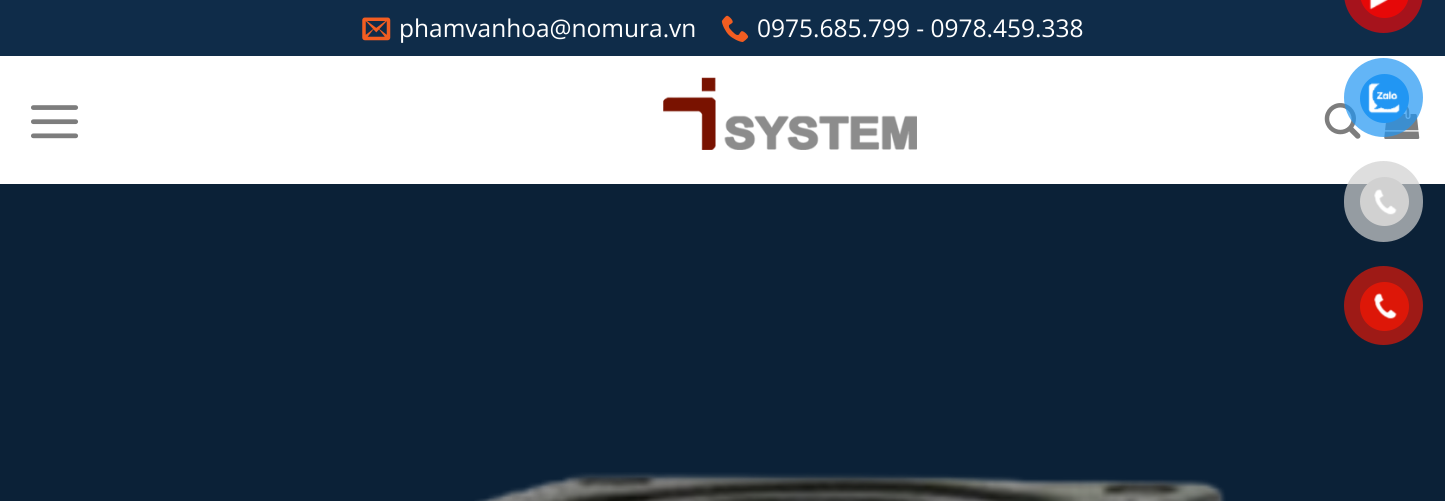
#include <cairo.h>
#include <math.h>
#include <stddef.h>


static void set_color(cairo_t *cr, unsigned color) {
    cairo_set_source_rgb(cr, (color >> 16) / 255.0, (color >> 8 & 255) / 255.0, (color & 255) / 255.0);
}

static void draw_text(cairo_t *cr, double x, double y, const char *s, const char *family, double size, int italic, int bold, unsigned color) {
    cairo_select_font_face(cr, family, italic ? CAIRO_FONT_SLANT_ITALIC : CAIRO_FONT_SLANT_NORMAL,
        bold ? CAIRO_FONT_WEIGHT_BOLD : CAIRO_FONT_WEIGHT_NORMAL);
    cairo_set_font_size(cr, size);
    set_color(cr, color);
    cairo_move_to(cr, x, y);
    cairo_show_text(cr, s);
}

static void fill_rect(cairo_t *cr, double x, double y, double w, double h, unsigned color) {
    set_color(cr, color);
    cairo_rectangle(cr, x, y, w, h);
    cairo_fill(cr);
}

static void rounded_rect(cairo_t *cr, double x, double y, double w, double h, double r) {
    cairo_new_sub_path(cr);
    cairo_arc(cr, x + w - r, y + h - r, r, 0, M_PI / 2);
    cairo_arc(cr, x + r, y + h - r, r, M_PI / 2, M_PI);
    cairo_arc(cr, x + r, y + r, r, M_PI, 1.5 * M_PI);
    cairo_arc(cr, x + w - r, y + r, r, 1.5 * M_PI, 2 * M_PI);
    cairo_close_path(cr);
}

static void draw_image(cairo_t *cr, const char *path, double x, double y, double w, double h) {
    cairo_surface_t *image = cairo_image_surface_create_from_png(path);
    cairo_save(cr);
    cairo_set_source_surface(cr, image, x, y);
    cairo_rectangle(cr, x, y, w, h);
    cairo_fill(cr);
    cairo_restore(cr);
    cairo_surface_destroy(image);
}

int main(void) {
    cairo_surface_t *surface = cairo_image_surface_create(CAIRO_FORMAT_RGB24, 1445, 501);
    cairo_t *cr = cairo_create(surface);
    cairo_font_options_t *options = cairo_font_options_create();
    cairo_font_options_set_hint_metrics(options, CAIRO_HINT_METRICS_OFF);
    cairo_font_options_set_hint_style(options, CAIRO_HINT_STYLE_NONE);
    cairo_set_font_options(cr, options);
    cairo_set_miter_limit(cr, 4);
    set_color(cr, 0xFFFFFF);
    cairo_paint(cr);
    fill_rect(cr, 0, 0, 1445, 56, 0x0F2C49);
    draw_image(cr, "assets/img1.png", 362, 17, 29, 24);
    draw_text(cr, 399, 37, "phamvanhoa@nomura.vn", "Open Sans", 24.5, 0, 0, 0xFFFFFF);
    draw_image(cr, "assets/img2.png", 721, 15, 28, 27);
    draw_text(cr, 757, 37, "0975.685.799 - 0978.459.338", "Open Sans", 24.5, 0, 0, 0xFFFFFF);
    draw_image(cr, "assets/img3.png", 31, 105, 48, 34);
    draw_image(cr, "assets/img4.png", 663, 77, 254, 73);
    draw_image(cr, "assets/img5.png", 1324, 103, 37, 36);
    draw_image(cr, "assets/img6.png", 1384, 106, 36, 33);
    fill_rect(cr, 0, 184, 1445, 317, 0x0B2137);
    draw_image(cr, "assets/img7.png", 474, 472, 752, 29);
    set_color(cr, 0xA6131C);
    rounded_rect(cr, 1344, -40, 79, 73, 39.5);
    cairo_fill(cr);
    set_color(cr, 0xE60808);
    rounded_rect(cr, 1360, -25, 49, 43, 24.5);
    cairo_fill(cr);
    draw_image(cr, "assets/img8.png", 1369, 0, 19, 10);
    cairo_set_source_rgba(cr, 0.129, 0.588, 0.953, 0.7);
    cairo_arc(cr, 1383.5, 97.5, 39.5, 0, 2 * M_PI);
    cairo_fill(cr);
    set_color(cr, 0x2196F3);
    cairo_arc(cr, 1384.5, 98.5, 24.5, 0, 2 * M_PI);
    cairo_fill(cr);
    draw_image(cr, "assets/img9.png", 1368, 82, 32, 32);
    cairo_set_source_rgba(cr, 0.82, 0.82, 0.82, 0.7);
    rounded_rect(cr, 1344, 161, 79, 81, 39.5);
    cairo_fill(cr);
    set_color(cr, 0xD1D1D1);
    cairo_arc(cr, 1384.5, 201.5, 24.5, 0, 2 * M_PI);
    cairo_fill(cr);
    draw_image(cr, "assets/img10.png", 1374, 189, 23, 26);
    set_color(cr, 0x9E1A16);
    cairo_arc(cr, 1383.5, 305.5, 39.5, 0, 2 * M_PI);
    cairo_fill(cr);
    set_color(cr, 0xDD1708);
    cairo_arc(cr, 1384.5, 306.5, 24.5, 0, 2 * M_PI);
    cairo_fill(cr);
    draw_image(cr, "assets/img11.png", 1374, 293, 23, 26);
    cairo_surface_write_to_png(surface, "output.png");
    cairo_font_options_destroy(options);
    cairo_destroy(cr);
    cairo_surface_destroy(surface);
    return 0;
}
